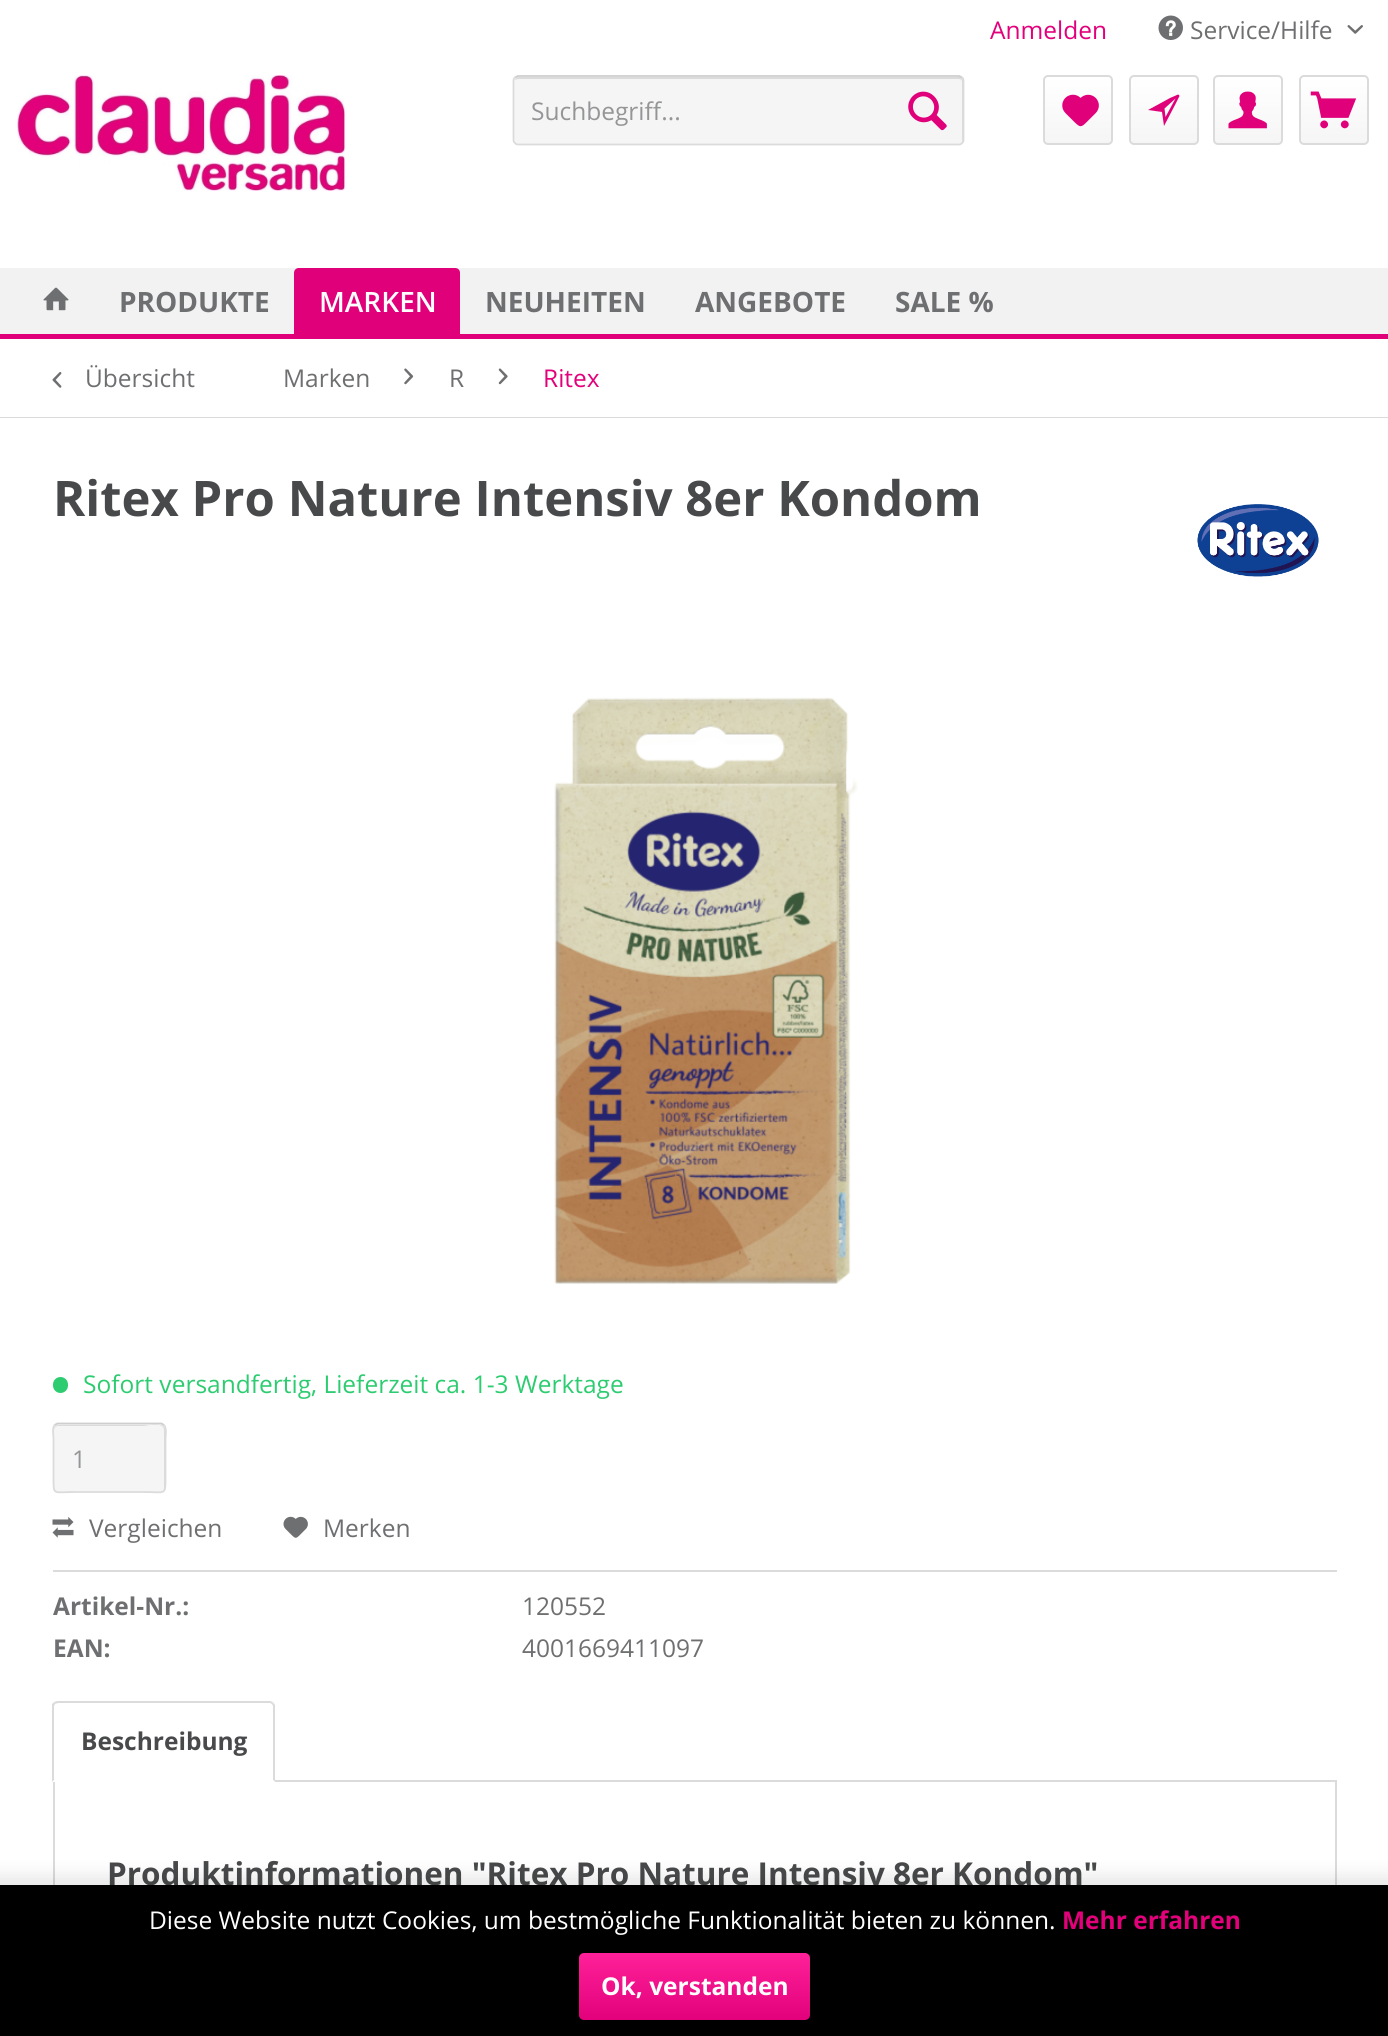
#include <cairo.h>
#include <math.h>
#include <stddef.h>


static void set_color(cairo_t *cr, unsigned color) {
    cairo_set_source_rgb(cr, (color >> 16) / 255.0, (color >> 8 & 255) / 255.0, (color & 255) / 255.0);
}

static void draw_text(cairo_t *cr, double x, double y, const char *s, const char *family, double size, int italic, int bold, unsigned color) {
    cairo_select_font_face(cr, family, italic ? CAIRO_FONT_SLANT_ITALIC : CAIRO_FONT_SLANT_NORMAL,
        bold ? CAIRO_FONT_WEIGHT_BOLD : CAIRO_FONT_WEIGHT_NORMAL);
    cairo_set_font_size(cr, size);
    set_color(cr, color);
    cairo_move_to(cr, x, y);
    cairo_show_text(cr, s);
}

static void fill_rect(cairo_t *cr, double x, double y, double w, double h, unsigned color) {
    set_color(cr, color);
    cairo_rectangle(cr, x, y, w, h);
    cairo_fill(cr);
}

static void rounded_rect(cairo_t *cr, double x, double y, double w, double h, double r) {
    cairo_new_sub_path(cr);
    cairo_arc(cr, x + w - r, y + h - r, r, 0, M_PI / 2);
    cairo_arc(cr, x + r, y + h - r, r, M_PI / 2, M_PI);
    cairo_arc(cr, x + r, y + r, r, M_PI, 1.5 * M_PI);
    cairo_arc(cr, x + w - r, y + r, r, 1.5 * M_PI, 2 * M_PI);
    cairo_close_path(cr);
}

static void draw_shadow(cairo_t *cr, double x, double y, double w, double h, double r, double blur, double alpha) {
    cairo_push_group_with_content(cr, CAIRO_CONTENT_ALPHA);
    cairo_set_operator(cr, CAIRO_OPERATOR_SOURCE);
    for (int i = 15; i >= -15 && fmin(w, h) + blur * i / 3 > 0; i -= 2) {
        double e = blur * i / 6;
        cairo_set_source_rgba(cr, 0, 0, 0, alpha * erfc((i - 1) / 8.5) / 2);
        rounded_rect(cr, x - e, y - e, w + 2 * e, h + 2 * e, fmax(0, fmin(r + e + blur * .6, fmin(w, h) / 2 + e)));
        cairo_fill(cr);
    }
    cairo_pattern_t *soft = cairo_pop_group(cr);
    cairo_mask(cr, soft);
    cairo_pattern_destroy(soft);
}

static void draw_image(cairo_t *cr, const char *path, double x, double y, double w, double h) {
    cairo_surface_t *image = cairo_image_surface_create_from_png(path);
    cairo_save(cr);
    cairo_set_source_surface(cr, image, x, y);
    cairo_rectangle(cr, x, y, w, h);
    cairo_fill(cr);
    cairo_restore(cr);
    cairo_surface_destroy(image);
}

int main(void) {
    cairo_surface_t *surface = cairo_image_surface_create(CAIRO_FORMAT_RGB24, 1388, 2036);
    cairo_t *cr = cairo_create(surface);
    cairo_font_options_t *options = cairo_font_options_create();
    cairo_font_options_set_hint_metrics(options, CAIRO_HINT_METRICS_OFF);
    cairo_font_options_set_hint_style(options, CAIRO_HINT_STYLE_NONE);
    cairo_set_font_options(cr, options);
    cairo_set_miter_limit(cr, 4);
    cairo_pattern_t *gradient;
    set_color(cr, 0xFFFFFF);
    cairo_paint(cr);
    draw_text(cr, 990, 39, "Anmelden", "Open Sans", 24.5, 0, 0, 0xE2017B);
    draw_image(cr, "assets/img1.png", 1158, 15, 25, 25);
    draw_text(cr, 1190, 39, "Service/Hilfe", "Open Sans", 24.5, 0, 0, 0x6E6F71);
    draw_image(cr, "assets/img2.png", 1347, 25, 16, 9);
    draw_image(cr, "assets/img3.png", 17, 75, 328, 116);
    set_color(cr, 0xF5F5F5);
    rounded_rect(cr, 513, 75, 451, 70, 5);
    cairo_fill(cr);
    set_color(cr, 0xDBDBDB);
    cairo_new_path(cr);
    cairo_move_to(cr, 518, 79);
    cairo_line_to(cr, 959, 79);
    cairo_curve_to(cr, 961, 79, 962, 80, 962, 82);
    cairo_line_to(cr, 962, 143);
    cairo_curve_to(cr, 963, 142, 963, 141, 963, 140);
    cairo_line_to(cr, 963, 81);
    cairo_curve_to(cr, 963, 79, 961, 77, 959, 77);
    cairo_line_to(cr, 519, 77);
    cairo_curve_to(cr, 517, 77, 516, 78, 515, 80);
    cairo_close_path(cr);
    cairo_fill(cr);
    cairo_new_path(cr);
    cairo_move_to(cr, 515, 77.5);
    cairo_line_to(cr, 518, 76);
    cairo_line_to(cr, 959, 76);
    cairo_line_to(cr, 962, 77.5);
    set_color(cr, 0xCECECE);
    cairo_set_line_width(cr, 1.8);
    cairo_stroke(cr);
    cairo_new_path(cr);
    cairo_move_to(cr, 962, 77.5);
    cairo_curve_to(cr, 963, 78, 963.5, 79.5, 963.5, 80.5);
    cairo_line_to(cr, 963.5, 140);
    cairo_curve_to(cr, 963.5, 141, 963, 142.5, 962, 143);
    cairo_curve_to(cr, 961.5, 144, 960, 144.5, 959, 144.5);
    cairo_line_to(cr, 518, 144.5);
    cairo_curve_to(cr, 517, 144.5, 515.5, 144, 515, 143);
    cairo_curve_to(cr, 514, 142.5, 513.5, 141, 513.5, 140);
    cairo_line_to(cr, 513.5, 80.5);
    cairo_curve_to(cr, 513.5, 79.5, 514, 78, 515, 77.5);
    set_color(cr, 0xDBDBDB);
    cairo_stroke(cr);
    draw_text(cr, 531, 120, "Suchbegriff...", "Open Sans", 24.5, 0, 0, 0x949597);
    draw_image(cr, "assets/img4.png", 908, 91, 39, 40);
    gradient = cairo_pattern_create_linear(1078, 77, 1078, 144);
    cairo_pattern_add_color_stop_rgba(gradient, 0, 1, 1, 1, 1);
    cairo_pattern_add_color_stop_rgba(gradient, 1, 0.961, 0.961, 0.961, 1);
    cairo_set_source(cr, gradient);
    cairo_pattern_destroy(gradient);
    rounded_rect(cr, 1045, 77, 66, 67, 4);
    cairo_fill(cr);
    rounded_rect(cr, 1044, 76, 68, 68, 4);
    set_color(cr, 0xDBDBDB);
    cairo_set_line_width(cr, 2);
    cairo_stroke(cr);
    draw_image(cr, "assets/img5.png", 1062, 94, 37, 33);
    gradient = cairo_pattern_create_linear(1164, 77, 1164, 144);
    cairo_pattern_add_color_stop_rgba(gradient, 0, 1, 1, 1, 1);
    cairo_pattern_add_color_stop_rgba(gradient, 1, 0.961, 0.961, 0.961, 1);
    cairo_set_source(cr, gradient);
    cairo_pattern_destroy(gradient);
    rounded_rect(cr, 1131, 77, 66, 67, 4);
    cairo_fill(cr);
    rounded_rect(cr, 1130, 76, 68, 68, 4);
    set_color(cr, 0xDBDBDB);
    cairo_stroke(cr);
    set_color(cr, 0xE0007A);
    cairo_new_path(cr);
    cairo_move_to(cr, 1179, 95);
    cairo_line_to(cr, 1178, 94.5);
    cairo_line_to(cr, 1170, 98);
    cairo_line_to(cr, 1148, 110);
    cairo_line_to(cr, 1162, 112);
    cairo_line_to(cr, 1164, 126);
    cairo_line_to(cr, 1175.5, 104);
    cairo_line_to(cr, 1179.5, 96);
    cairo_close_path(cr);
    cairo_move_to(cr, 1175.5, 98.5);
    cairo_line_to(cr, 1165.5, 117);
    cairo_line_to(cr, 1164.5, 108.5);
    cairo_close_path(cr);
    cairo_fill(cr);
    gradient = cairo_pattern_create_linear(1248, 77, 1248, 144);
    cairo_pattern_add_color_stop_rgba(gradient, 0, 1, 1, 1, 1);
    cairo_pattern_add_color_stop_rgba(gradient, 1, 0.961, 0.961, 0.961, 1);
    cairo_set_source(cr, gradient);
    cairo_pattern_destroy(gradient);
    rounded_rect(cr, 1215, 77, 66, 67, 4);
    cairo_fill(cr);
    rounded_rect(cr, 1214, 76, 68, 68, 4);
    set_color(cr, 0xDBDBDB);
    cairo_stroke(cr);
    draw_image(cr, "assets/img6.png", 1228, 91, 39, 38);
    gradient = cairo_pattern_create_linear(1334, 77, 1334, 144);
    cairo_pattern_add_color_stop_rgba(gradient, 0, 1, 1, 1, 1);
    cairo_pattern_add_color_stop_rgba(gradient, 1, 0.961, 0.961, 0.961, 1);
    cairo_set_source(cr, gradient);
    cairo_pattern_destroy(gradient);
    rounded_rect(cr, 1300, 77, 67, 67, 4);
    cairo_fill(cr);
    rounded_rect(cr, 1300, 76, 68, 68, 4);
    set_color(cr, 0xDBDBDB);
    cairo_stroke(cr);
    draw_image(cr, "assets/img7.png", 1310, 91, 47, 38);
    fill_rect(cr, 0, 334, 1388, 5, 0xE0007A);
    fill_rect(cr, 0, 268, 1388, 66, 0xF2F2F2);
    draw_image(cr, "assets/img8.png", 43, 287, 26, 24);
    draw_text(cr, 119, 312, "PRODUKTE", "Open Sans", 28, 0, 1, 0x6E6F71);
    set_color(cr, 0xE0007A);
    cairo_new_path(cr);
    cairo_move_to(cr, 299, 268);
    cairo_line_to(cr, 455, 268);
    cairo_curve_to(cr, 458, 268, 460, 270, 460, 273);
    cairo_line_to(cr, 460, 334);
    cairo_line_to(cr, 294, 334);
    cairo_line_to(cr, 294, 273);
    cairo_curve_to(cr, 294, 270, 296, 268, 299, 268);
    cairo_close_path(cr);
    cairo_fill(cr);
    draw_text(cr, 319, 312, "MARKEN", "Open Sans SemiBold", 28, 0, 0, 0xFFFFFF);
    draw_text(cr, 485, 312, "NEUHEITEN", "Open Sans", 28, 0, 1, 0x6E6F71);
    draw_text(cr, 695, 312, "ANGEBOTE", "Open Sans", 28, 0, 1, 0x6E6F71);
    draw_text(cr, 895, 312, "SALE %", "Open Sans", 28, 0, 1, 0x6E6F71);
    fill_rect(cr, 0, 417, 1388, 1, 0xDBDBDB);
    draw_image(cr, "assets/img9.png", 52, 372, 10, 16);
    draw_text(cr, 85, 387, "Übersicht", "Open Sans", 24.5, 0, 0, 0x6E6F71);
    draw_text(cr, 283, 387, "Marken", "Open Sans", 24.5, 0, 0, 0x6E6F71);
    draw_image(cr, "assets/img10.png", 404, 368, 10, 17);
    draw_text(cr, 449, 387, "R", "Open Sans", 24.5, 0, 0, 0x6E6F71);
    draw_image(cr, "assets/img11.png", 498, 368, 10, 17);
    draw_text(cr, 543, 387, "Ritex", "Open Sans", 24.5, 0, 0, 0xE2017B);
    draw_text(cr, 53, 516, "Ritex Pro Nature Intensiv 8er Kondom", "Open Sans", 49, 0, 1, 0x48494A);
    draw_image(cr, "assets/img12.png", 1197, 504, 122, 73);
    draw_image(cr, "assets/img13.png", 554, 697, 304, 587);
    set_color(cr, 0x2ECC71);
    rounded_rect(cr, 53, 1377, 15, 16, 7.5);
    cairo_fill(cr);
    draw_text(cr, 83, 1393, "Sofort versandfertig, Lieferzeit ca. 1-3 Werktage", "Open Sans", 24.5, 0, 0, 0x2ECC71);
    set_color(cr, 0xF5F5F5);
    rounded_rect(cr, 53, 1423, 113, 70, 5);
    cairo_fill(cr);
    set_color(cr, 0xDBDBDB);
    cairo_new_path(cr);
    cairo_move_to(cr, 58, 1426);
    cairo_line_to(cr, 144, 1426);
    cairo_curve_to(cr, 145, 1426, 164, 1421, 164, 1430);
    cairo_line_to(cr, 164, 1490);
    cairo_curve_to(cr, 165, 1489, 165, 1488, 165, 1487);
    cairo_line_to(cr, 165, 1429);
    cairo_curve_to(cr, 165, 1427, 163, 1425, 161, 1425);
    cairo_line_to(cr, 58, 1425);
    cairo_curve_to(cr, 56, 1425, 54, 1427, 54, 1429);
    cairo_line_to(cr, 54, 1430);
    cairo_curve_to(cr, 54, 1428, 56, 1426, 58, 1426);
    cairo_close_path(cr);
    cairo_fill(cr);
    cairo_new_path(cr);
    cairo_move_to(cr, 54.5, 1425);
    cairo_line_to(cr, 57.5, 1423.5);
    cairo_line_to(cr, 161.5, 1423.5);
    cairo_line_to(cr, 164, 1425);
    set_color(cr, 0xCECECE);
    cairo_set_line_width(cr, 1.8);
    cairo_stroke(cr);
    cairo_new_path(cr);
    cairo_move_to(cr, 164, 1425);
    cairo_curve_to(cr, 167, 1428, 165.5, 1436.5, 165.5, 1438);
    cairo_line_to(cr, 165.5, 1477.5);
    cairo_curve_to(cr, 165.5, 1496, 165.5, 1492, 144, 1492);
    cairo_line_to(cr, 75, 1492);
    cairo_curve_to(cr, 53, 1492, 53.5, 1496, 53.5, 1477.5);
    cairo_line_to(cr, 53.5, 1438);
    cairo_curve_to(cr, 53.5, 1436.5, 52, 1428, 54.5, 1425);
    set_color(cr, 0xDBDBDB);
    cairo_stroke(cr);
    draw_text(cr, 72, 1468, "1", "Open Sans", 24.5, 0, 0, 0x949597);
    fill_rect(cr, 53, 1570, 1284, 2, 0xDBDBDB);
    draw_image(cr, "assets/img14.png", 52, 1517, 22, 21);
    draw_text(cr, 89, 1537, "Vergleichen", "Open Sans", 24.5, 0, 0, 0x6E6F71);
    draw_image(cr, "assets/img15.png", 283, 1516, 25, 22);
    draw_text(cr, 323, 1537, "Merken", "Open Sans", 24.5, 0, 0, 0x6E6F71);
    draw_text(cr, 53, 1615, "Artikel-Nr.:", "Open Sans", 24.5, 0, 1, 0x6E6F71);
    draw_text(cr, 522, 1615, "120552", "Open Sans", 24.5, 0, 0, 0x6E6F71);
    draw_text(cr, 53, 1657, "EAN:", "Open Sans", 24.5, 0, 1, 0x6E6F71);
    draw_text(cr, 522, 1657, "4001669411097", "Open Sans", 24.5, 0, 0, 0x6E6F71);
    cairo_rectangle(cr, 54, 1781, 1282, 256);
    set_color(cr, 0xDBDBDB);
    cairo_set_line_width(cr, 2);
    cairo_stroke(cr);
    set_color(cr, 0xFFFFFF);
    cairo_new_path(cr);
    cairo_move_to(cr, 58, 1701);
    cairo_line_to(cr, 270, 1701);
    cairo_curve_to(cr, 273, 1701, 275, 1703, 275, 1706);
    cairo_line_to(cr, 275, 1782);
    cairo_line_to(cr, 53, 1782);
    cairo_line_to(cr, 53, 1706);
    cairo_curve_to(cr, 53, 1703, 55, 1701, 58, 1701);
    cairo_close_path(cr);
    cairo_fill(cr);
    set_color(cr, 0xDBDBDB);
    cairo_new_path(cr);
    cairo_move_to(cr, 58, 1701);
    cairo_curve_to(cr, 56, 1701, 55, 1702, 54, 1702);
    cairo_line_to(cr, 55, 1704);
    cairo_line_to(cr, 58, 1703);
    cairo_line_to(cr, 270, 1703);
    cairo_line_to(cr, 272, 1704);
    cairo_line_to(cr, 273, 1702);
    cairo_line_to(cr, 270, 1701);
    cairo_close_path(cr);
    cairo_fill(cr);
    cairo_new_path(cr);
    cairo_move_to(cr, 273, 1702);
    cairo_line_to(cr, 275, 1705);
    cairo_line_to(cr, 275, 1782);
    cairo_line_to(cr, 273, 1780);
    cairo_line_to(cr, 273, 1706);
    cairo_line_to(cr, 272, 1704);
    cairo_close_path(cr);
    cairo_fill(cr);
    set_color(cr, 0xFFFFFF);
    cairo_new_path(cr);
    cairo_move_to(cr, 275, 1782);
    cairo_line_to(cr, 273, 1780);
    cairo_line_to(cr, 54, 1780);
    cairo_line_to(cr, 52, 1782);
    cairo_close_path(cr);
    cairo_fill(cr);
    set_color(cr, 0xDBDBDB);
    cairo_new_path(cr);
    cairo_move_to(cr, 52, 1782);
    cairo_line_to(cr, 52, 1704);
    cairo_line_to(cr, 54, 1702);
    cairo_line_to(cr, 55, 1704);
    cairo_line_to(cr, 54, 1706);
    cairo_line_to(cr, 54, 1780);
    cairo_close_path(cr);
    cairo_fill(cr);
    draw_text(cr, 81, 1750, "Beschreibung", "Open Sans", 24.5, 0, 1, 0x48494A);
    draw_text(cr, 107, 1885, "Produktinformationen \"Ritex Pro Nature Intensiv 8er Kondom\"", "Open Sans", 31.5, 0, 1, 0x48494A);
    set_color(cr, 0x000000);
    draw_shadow(cr, -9, 1876, 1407, 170, 0, 9, 0.1);
    fill_rect(cr, 0, 1885, 1388, 151, 0x000000);
    draw_text(cr, 149, 1929, "Diese Website nutzt Cookies, um bestmögliche Funktionalität bieten zu können.", "Open Sans", 24.5, 0, 0, 0xFFFFFF);
    draw_text(cr, 1062, 1929, "Mehr erfahren", "Open Sans", 24.5, 0, 1, 0xE2017B);
    gradient = cairo_pattern_create_linear(695, 1953, 695, 2020);
    cairo_pattern_add_color_stop_rgba(gradient, 0, 1, 0.129, 0.6, 1);
    cairo_pattern_add_color_stop_rgba(gradient, 1, 0.886, 0.004, 0.482, 1);
    cairo_set_source(cr, gradient);
    cairo_pattern_destroy(gradient);
    rounded_rect(cr, 579, 1953, 231, 67, 5);
    cairo_fill(cr);
    draw_text(cr, 601, 1995, "Ok, verstanden", "Open Sans", 24.5, 0, 1, 0xFFFFFF);
    cairo_surface_write_to_png(surface, "output.png");
    cairo_font_options_destroy(options);
    cairo_destroy(cr);
    cairo_surface_destroy(surface);
    return 0;
}
